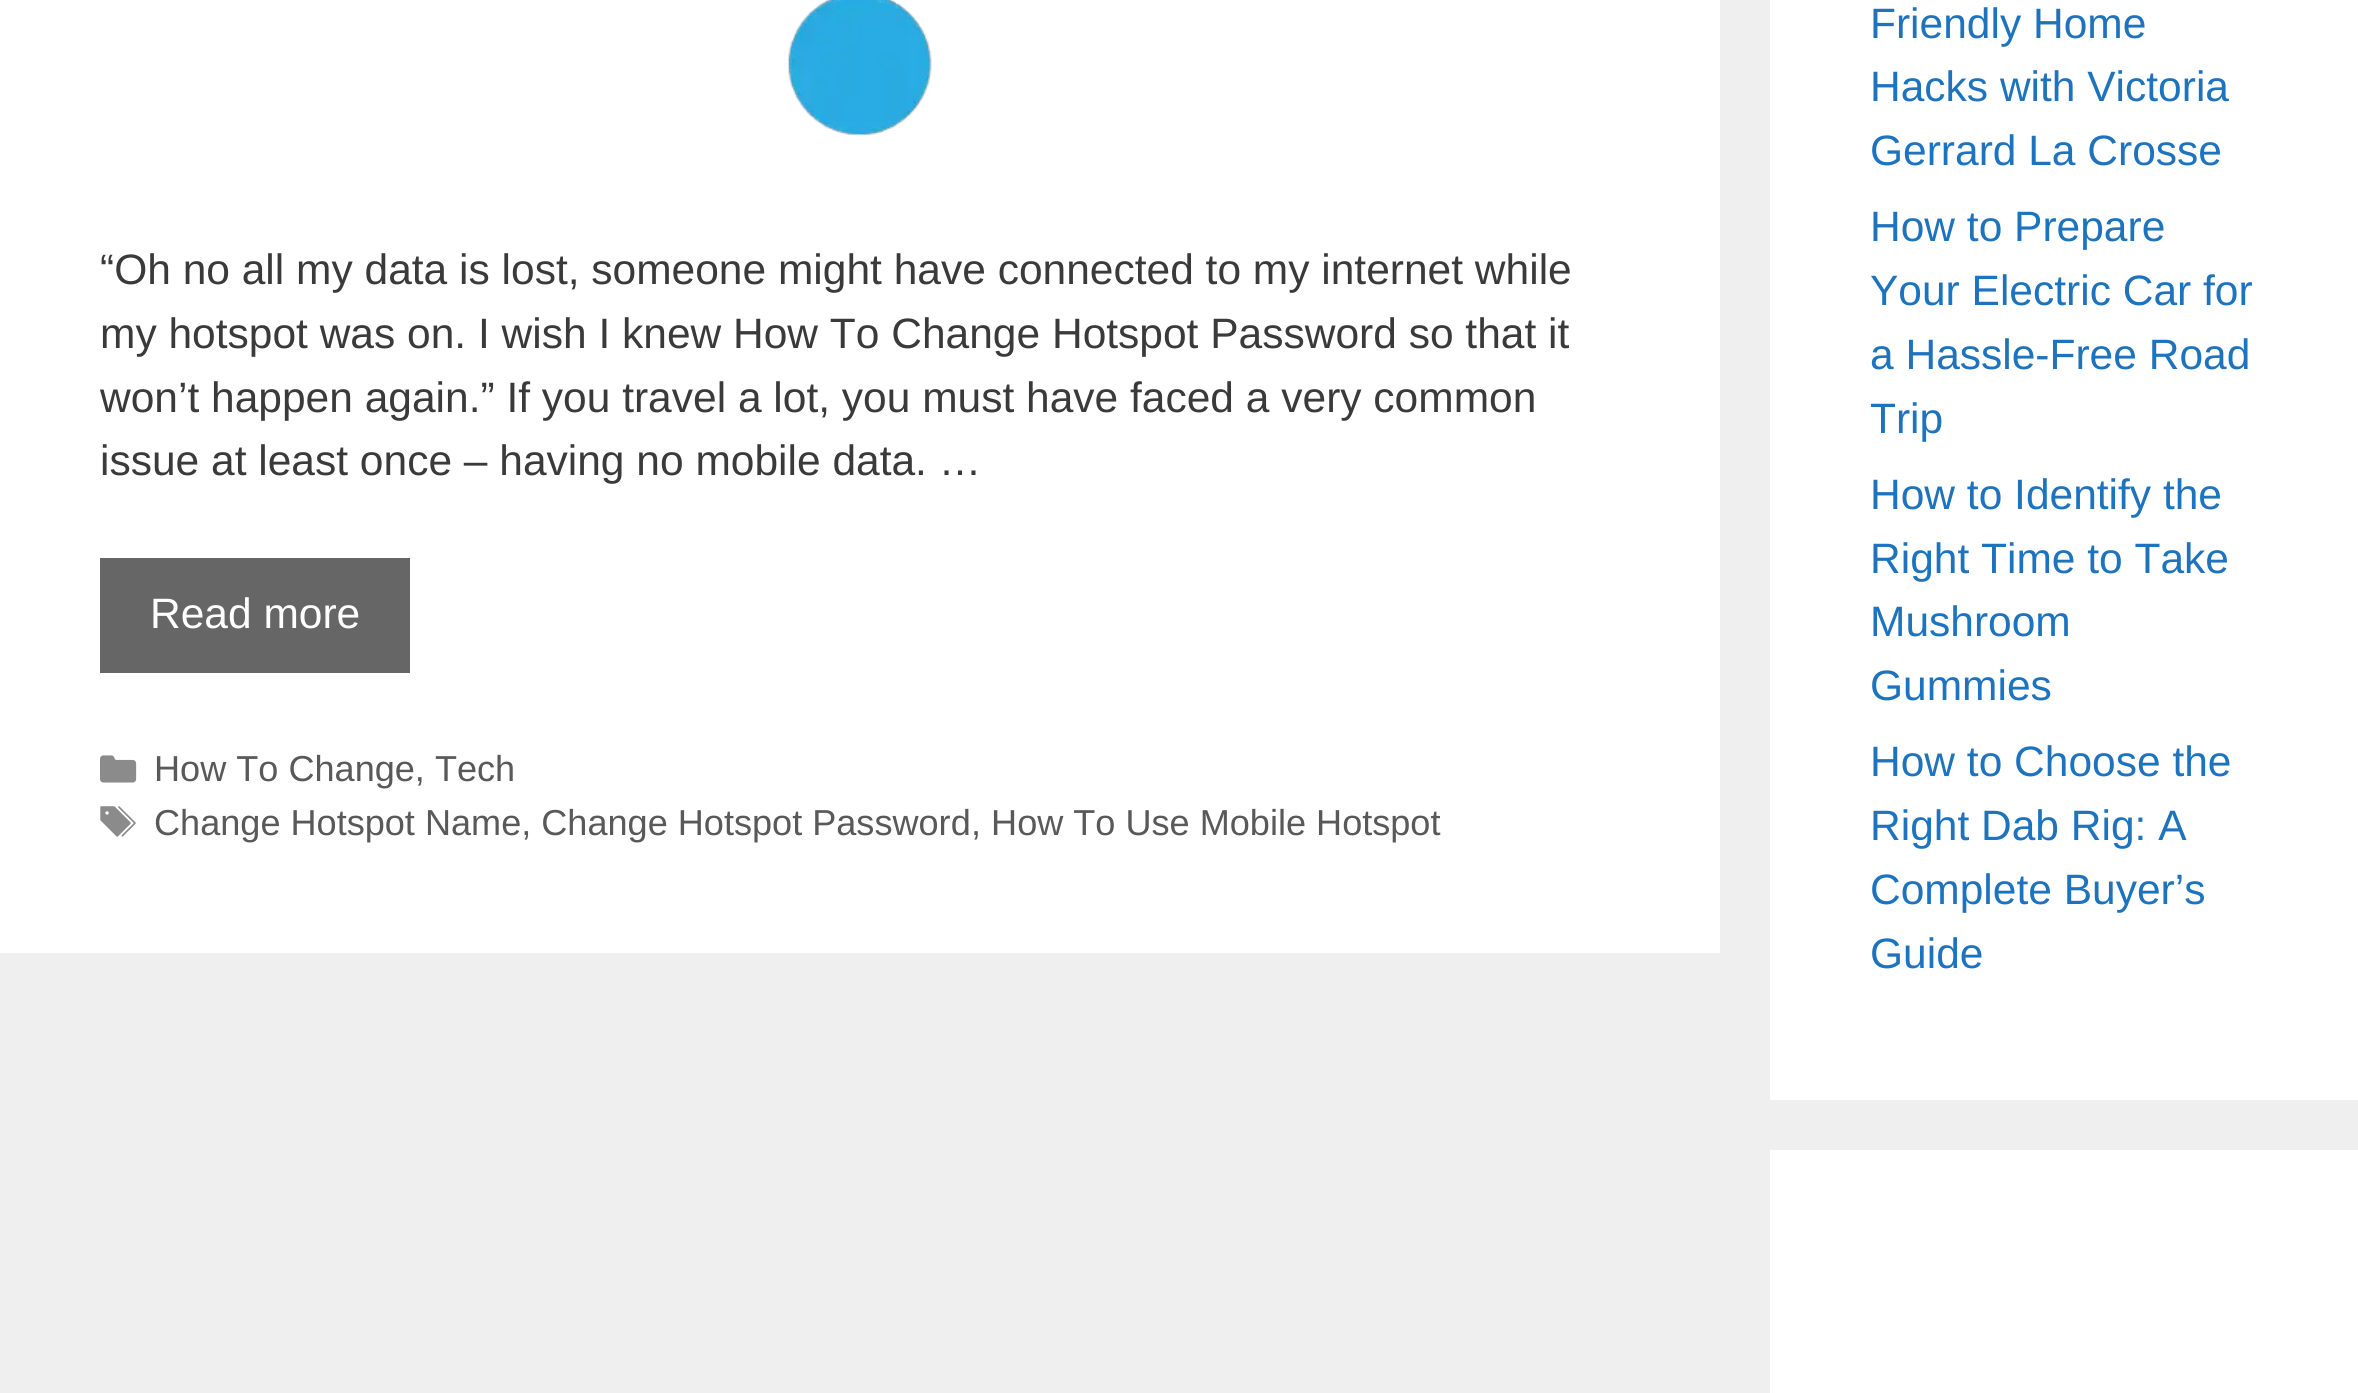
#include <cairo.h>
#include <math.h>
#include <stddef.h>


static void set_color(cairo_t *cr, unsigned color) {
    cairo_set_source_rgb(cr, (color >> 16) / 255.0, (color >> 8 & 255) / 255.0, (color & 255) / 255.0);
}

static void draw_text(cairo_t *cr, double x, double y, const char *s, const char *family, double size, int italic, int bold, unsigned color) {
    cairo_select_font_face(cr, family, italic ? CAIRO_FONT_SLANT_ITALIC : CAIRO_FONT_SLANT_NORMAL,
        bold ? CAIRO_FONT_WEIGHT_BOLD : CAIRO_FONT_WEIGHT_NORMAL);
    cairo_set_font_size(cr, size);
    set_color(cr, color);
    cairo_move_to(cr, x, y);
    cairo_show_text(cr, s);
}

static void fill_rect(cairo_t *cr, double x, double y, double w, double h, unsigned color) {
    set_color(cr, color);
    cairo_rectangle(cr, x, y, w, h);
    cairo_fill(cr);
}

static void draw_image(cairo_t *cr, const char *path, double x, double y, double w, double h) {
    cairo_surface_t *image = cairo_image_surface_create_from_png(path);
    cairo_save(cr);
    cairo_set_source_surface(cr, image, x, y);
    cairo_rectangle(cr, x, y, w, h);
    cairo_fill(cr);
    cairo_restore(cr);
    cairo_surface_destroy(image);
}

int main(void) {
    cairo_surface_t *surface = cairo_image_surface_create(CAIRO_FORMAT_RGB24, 2358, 1393);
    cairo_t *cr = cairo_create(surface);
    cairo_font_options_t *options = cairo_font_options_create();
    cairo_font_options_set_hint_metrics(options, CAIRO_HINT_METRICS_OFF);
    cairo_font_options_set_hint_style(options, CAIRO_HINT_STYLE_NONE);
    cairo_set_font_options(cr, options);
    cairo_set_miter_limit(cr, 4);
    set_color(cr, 0xEFEFEF);
    cairo_paint(cr);
    fill_rect(cr, 0, 0, 1720, 953, 0xFFFFFF);
    draw_image(cr, "assets/img1.png", 788, 0, 144, 135);
    draw_text(cr, 100, 284, "“Oh no all my data is lost, someone might have connected to my internet while", "Liberation Sans", 42.5, 0, 0, 0x3A3A3A);
    draw_text(cr, 100, 348, "my hotspot was on. I wish I knew How To Change Hotspot Password so that it", "Liberation Sans", 42.5, 0, 0, 0x3A3A3A);
    draw_text(cr, 100, 412, "won’t happen again.” If you travel a lot, you must have faced a very common", "Liberation Sans", 42.5, 0, 0, 0x3A3A3A);
    draw_text(cr, 100, 475, "issue at least once – having no mobile data. …", "Liberation Sans", 42.5, 0, 0, 0x3A3A3A);
    fill_rect(cr, 100, 558, 310, 115, 0x666666);
    draw_text(cr, 150, 628, "Read more", "Liberation Sans", 42.5, 0, 0, 0xFFFFFF);
    draw_image(cr, "assets/img2.png", 100, 755, 37, 28);
    draw_text(cr, 154, 781, "How To Change, Tech", "Liberation Sans", 36.1, 0, 0, 0x595959);
    draw_image(cr, "assets/img3.png", 100, 806, 36, 31);
    draw_text(cr, 154, 835, "Change Hotspot Name, Change Hotspot Password", "Liberation Sans", 36.1, 0, 0, 0x595959);
    draw_text(cr, 971, 835, ", How To Use Mobile Hotspot", "Liberation Sans", 36.1, 0, 0, 0x595959);
    fill_rect(cr, 1770, 0, 588, 1100, 0xFFFFFF);
    draw_text(cr, 1870, 38, "Friendly Home", "Liberation Sans", 42.5, 0, 0, 0x1E73BE);
    draw_text(cr, 1870, 101, "Hacks with Victoria", "Liberation Sans", 42.5, 0, 0, 0x1E73BE);
    draw_text(cr, 1870, 165, "Gerrard La Crosse", "Liberation Sans", 42.5, 0, 0, 0x1E73BE);
    draw_text(cr, 1870, 241, "How to Prepare", "Liberation Sans", 42.5, 0, 0, 0x1E73BE);
    draw_text(cr, 1870, 305, "Your Electric Car for", "Liberation Sans", 42.5, 0, 0, 0x1E73BE);
    draw_text(cr, 1870, 369, "a Hassle-Free Road", "Liberation Sans", 42.5, 0, 0, 0x1E73BE);
    draw_text(cr, 1870, 433, "Trip", "Liberation Sans", 42.5, 0, 0, 0x1E73BE);
    draw_text(cr, 1870, 509, "How to Identify the", "Liberation Sans", 42.5, 0, 0, 0x1E73BE);
    draw_text(cr, 1870, 573, "Right Time to Take", "Liberation Sans", 42.5, 0, 0, 0x1E73BE);
    draw_text(cr, 1870, 636, "Mushroom", "Liberation Sans", 42.5, 0, 0, 0x1E73BE);
    draw_text(cr, 1870, 700, "Gummies", "Liberation Sans", 42.5, 0, 0, 0x1E73BE);
    draw_text(cr, 1870, 776, "How to Choose the", "Liberation Sans", 42.5, 0, 0, 0x1E73BE);
    draw_text(cr, 1870, 840, "Right Dab Rig: A", "Liberation Sans", 42.5, 0, 0, 0x1E73BE);
    draw_text(cr, 1870, 904, "Complete Buyer’s", "Liberation Sans", 42.5, 0, 0, 0x1E73BE);
    draw_text(cr, 1870, 968, "Guide", "Liberation Sans", 42.5, 0, 0, 0x1E73BE);
    fill_rect(cr, 1770, 1150, 588, 243, 0xFFFFFF);
    cairo_surface_write_to_png(surface, "output.png");
    cairo_font_options_destroy(options);
    cairo_destroy(cr);
    cairo_surface_destroy(surface);
    return 0;
}
